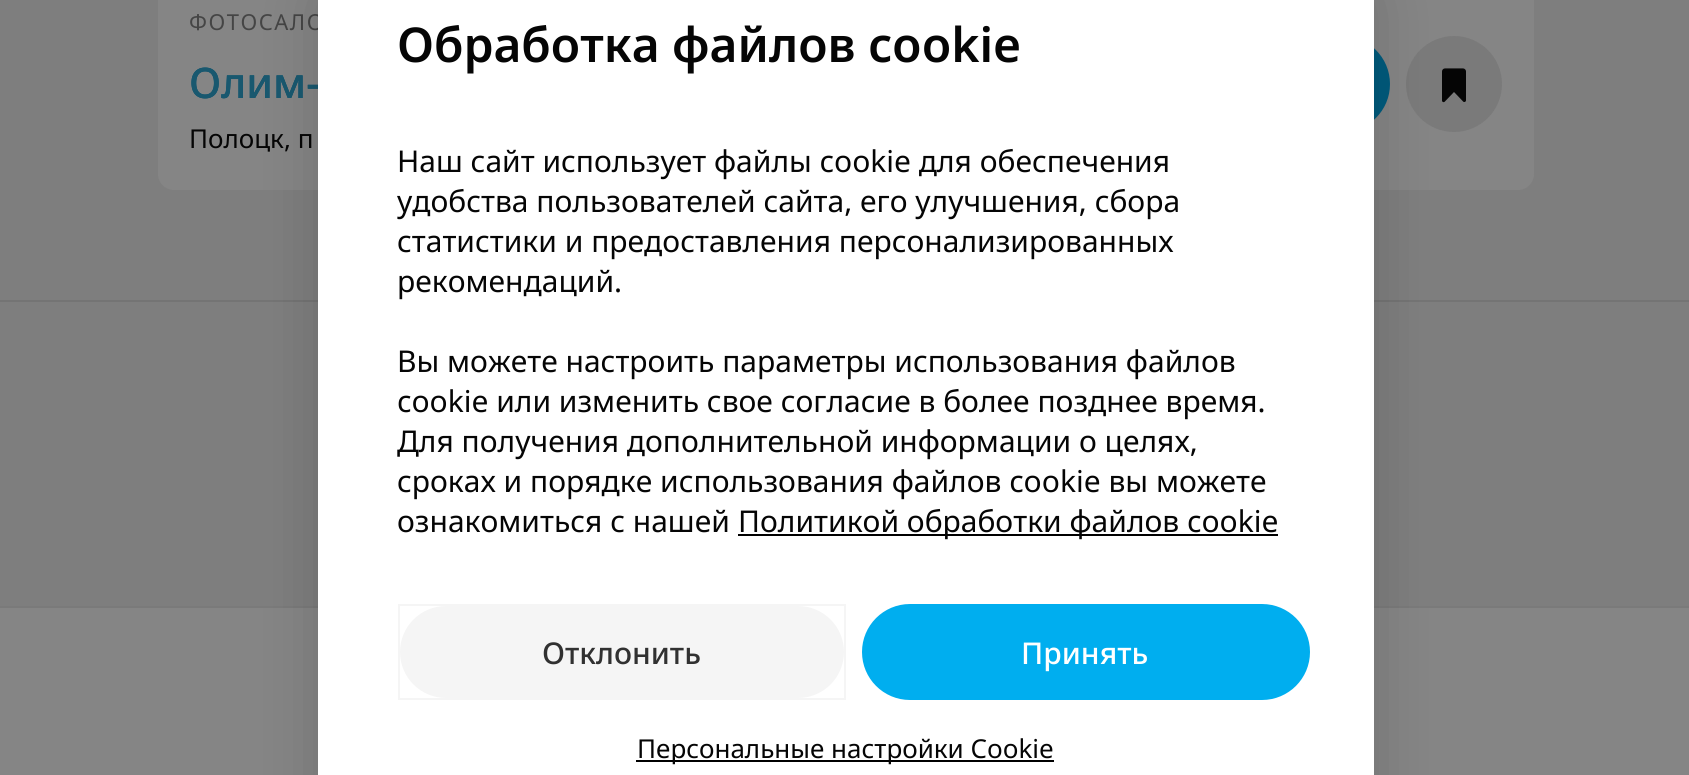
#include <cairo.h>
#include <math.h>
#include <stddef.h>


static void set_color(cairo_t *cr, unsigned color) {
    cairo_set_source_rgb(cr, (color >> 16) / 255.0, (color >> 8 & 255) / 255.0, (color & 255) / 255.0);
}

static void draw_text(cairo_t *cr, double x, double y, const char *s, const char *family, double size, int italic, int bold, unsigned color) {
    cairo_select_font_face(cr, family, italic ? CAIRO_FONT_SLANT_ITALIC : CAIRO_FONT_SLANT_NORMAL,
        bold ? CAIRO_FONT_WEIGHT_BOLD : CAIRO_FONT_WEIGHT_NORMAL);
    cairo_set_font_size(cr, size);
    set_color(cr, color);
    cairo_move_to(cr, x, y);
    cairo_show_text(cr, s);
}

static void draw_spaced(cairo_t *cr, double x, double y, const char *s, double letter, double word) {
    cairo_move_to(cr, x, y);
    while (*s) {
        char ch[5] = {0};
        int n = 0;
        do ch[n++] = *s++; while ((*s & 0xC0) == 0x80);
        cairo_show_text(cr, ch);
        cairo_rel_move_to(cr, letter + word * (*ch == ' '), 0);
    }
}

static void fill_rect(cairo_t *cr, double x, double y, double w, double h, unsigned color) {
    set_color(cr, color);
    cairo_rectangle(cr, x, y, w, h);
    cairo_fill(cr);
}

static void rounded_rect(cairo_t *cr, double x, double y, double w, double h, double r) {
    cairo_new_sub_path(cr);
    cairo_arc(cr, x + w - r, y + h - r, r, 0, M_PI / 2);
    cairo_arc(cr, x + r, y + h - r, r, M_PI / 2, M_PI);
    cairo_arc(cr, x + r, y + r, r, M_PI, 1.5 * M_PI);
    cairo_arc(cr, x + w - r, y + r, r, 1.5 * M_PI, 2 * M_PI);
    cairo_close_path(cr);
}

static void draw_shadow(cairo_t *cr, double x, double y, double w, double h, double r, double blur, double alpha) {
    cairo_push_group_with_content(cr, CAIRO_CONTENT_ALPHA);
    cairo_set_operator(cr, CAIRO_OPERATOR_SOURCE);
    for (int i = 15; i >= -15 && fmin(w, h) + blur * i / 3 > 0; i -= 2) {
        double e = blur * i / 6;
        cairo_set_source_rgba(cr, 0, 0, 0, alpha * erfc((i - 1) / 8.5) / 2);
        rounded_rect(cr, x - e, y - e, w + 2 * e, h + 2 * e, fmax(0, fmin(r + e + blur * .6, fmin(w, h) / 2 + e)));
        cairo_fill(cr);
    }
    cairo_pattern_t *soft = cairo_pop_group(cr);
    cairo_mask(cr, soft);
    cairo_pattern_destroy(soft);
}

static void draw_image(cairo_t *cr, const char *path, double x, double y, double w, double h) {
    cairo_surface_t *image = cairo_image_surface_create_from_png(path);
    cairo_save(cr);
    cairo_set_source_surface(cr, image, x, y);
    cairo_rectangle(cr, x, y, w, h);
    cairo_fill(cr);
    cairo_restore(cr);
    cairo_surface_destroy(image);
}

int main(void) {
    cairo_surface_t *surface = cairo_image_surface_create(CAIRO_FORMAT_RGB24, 1689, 775);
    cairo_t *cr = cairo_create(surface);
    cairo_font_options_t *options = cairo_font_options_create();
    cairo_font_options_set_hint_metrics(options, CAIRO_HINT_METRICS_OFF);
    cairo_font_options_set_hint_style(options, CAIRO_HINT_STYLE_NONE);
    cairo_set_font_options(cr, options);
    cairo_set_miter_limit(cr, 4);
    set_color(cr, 0x7E7E7E);
    cairo_paint(cr);
    set_color(cr, 0x858585);
    rounded_rect(cr, 158, -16, 1376, 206, 16);
    cairo_fill(cr);
    cairo_select_font_face(cr, "Noto Sans", CAIRO_FONT_SLANT_NORMAL, CAIRO_FONT_WEIGHT_NORMAL);
    cairo_set_font_size(cr, 22);
    set_color(cr, 0x454545);
    draw_spaced(cr, 189, 30, "ФОТОСАЛО", 1.5, 0);
    draw_text(cr, 189, 98, "Олим-", "Noto Sans Medium", 42, 0, 0, 0x004D6A);
    draw_text(cr, 189, 98, "Олим-", "Noto Sans Medium", 42, 0, 0, 0x19586F);
    draw_text(cr, 189, 148, "Полоцк, п", "Noto Sans", 26, 0, 0, 0x050505);
    set_color(cr, 0x005A7C);
    cairo_new_path(cr);
    cairo_arc(cr, 1342, 84, 48, 0, 2 * M_PI);
    cairo_fill(cr);
    set_color(cr, 0x7A7A7A);
    cairo_arc(cr, 1454, 84, 48, 0, 2 * M_PI);
    cairo_fill(cr);
    draw_image(cr, "assets/img1.png", 1442, 68, 24, 35);
    fill_rect(cr, 0, 300, 1689, 2, 0x747474);
    fill_rect(cr, 0, 608, 1689, 167, 0x858585);
    fill_rect(cr, 0, 606, 1689, 2, 0x7A7A7A);
    set_color(cr, 0x000000);
    draw_shadow(cr, 318, -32, 1056, 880, 40, 30, 0.16);
    fill_rect(cr, 318, 0, 1056, 775, 0xFFFFFF);
    draw_text(cr, 397, 62, "Обработка файлов cookie", "Noto Sans SemiBold", 48, 0, 0, 0x050505);
    draw_text(cr, 397, 172, "Наш сайт использует файлы cookie для обеспечения", "Noto Sans", 30, 0, 0, 0x050505);
    draw_text(cr, 397, 212, "удобства пользователей сайта, его улучшения, сбора", "Noto Sans", 30, 0, 0, 0x050505);
    draw_text(cr, 397, 252, "статистики и предоставления персонализированных", "Noto Sans", 30, 0, 0, 0x050505);
    draw_text(cr, 397, 292, "рекомендаций.", "Noto Sans", 30, 0, 0, 0x050505);
    draw_text(cr, 397, 372, "Вы можете настроить параметры использования файлов", "Noto Sans", 30, 0, 0, 0x050505);
    draw_text(cr, 397, 412, "cookie или изменить свое согласие в более позднее время.", "Noto Sans", 30, 0, 0, 0x050505);
    draw_text(cr, 397, 452, "Для получения дополнительной информации о целях,", "Noto Sans", 30, 0, 0, 0x050505);
    draw_text(cr, 397, 492, "сроках и порядке использования файлов cookie вы можете", "Noto Sans", 30, 0, 0, 0x050505);
    draw_text(cr, 397, 532, "ознакомиться с нашей", "Noto Sans", 30, 0, 0, 0x050505);
    fill_rect(cr, 738, 534, 540, 2, 0x000000);
    draw_text(cr, 738, 532, "Политикой обработки файлов cookie", "Noto Sans", 30, 0, 0, 0x050505);
    set_color(cr, 0xF5F5F5);
    rounded_rect(cr, 400, 606, 444, 92, 46);
    cairo_fill(cr);
    cairo_rectangle(cr, 399, 605, 446, 94);
    cairo_set_source_rgba(cr, 0, 0, 0, 0.04);
    cairo_stroke(cr);
    draw_text(cr, 542, 664, "Отклонить", "Noto Sans Medium", 30, 0, 0, 0x313131);
    set_color(cr, 0x00AEEF);
    rounded_rect(cr, 863, 605, 446, 94, 47);
    cairo_fill_preserve(cr);
    cairo_stroke(cr);
    draw_text(cr, 1021, 664, "Принять", "Noto Sans Medium", 30, 0, 0, 0xFFFFFF);
    fill_rect(cr, 636, 760, 418, 2, 0x000000);
    draw_text(cr, 637, 758, "Персональные настройки Cookie", "Noto Sans", 26, 0, 0, 0x050505);
    cairo_surface_write_to_png(surface, "output.png");
    cairo_font_options_destroy(options);
    cairo_destroy(cr);
    cairo_surface_destroy(surface);
    return 0;
}
